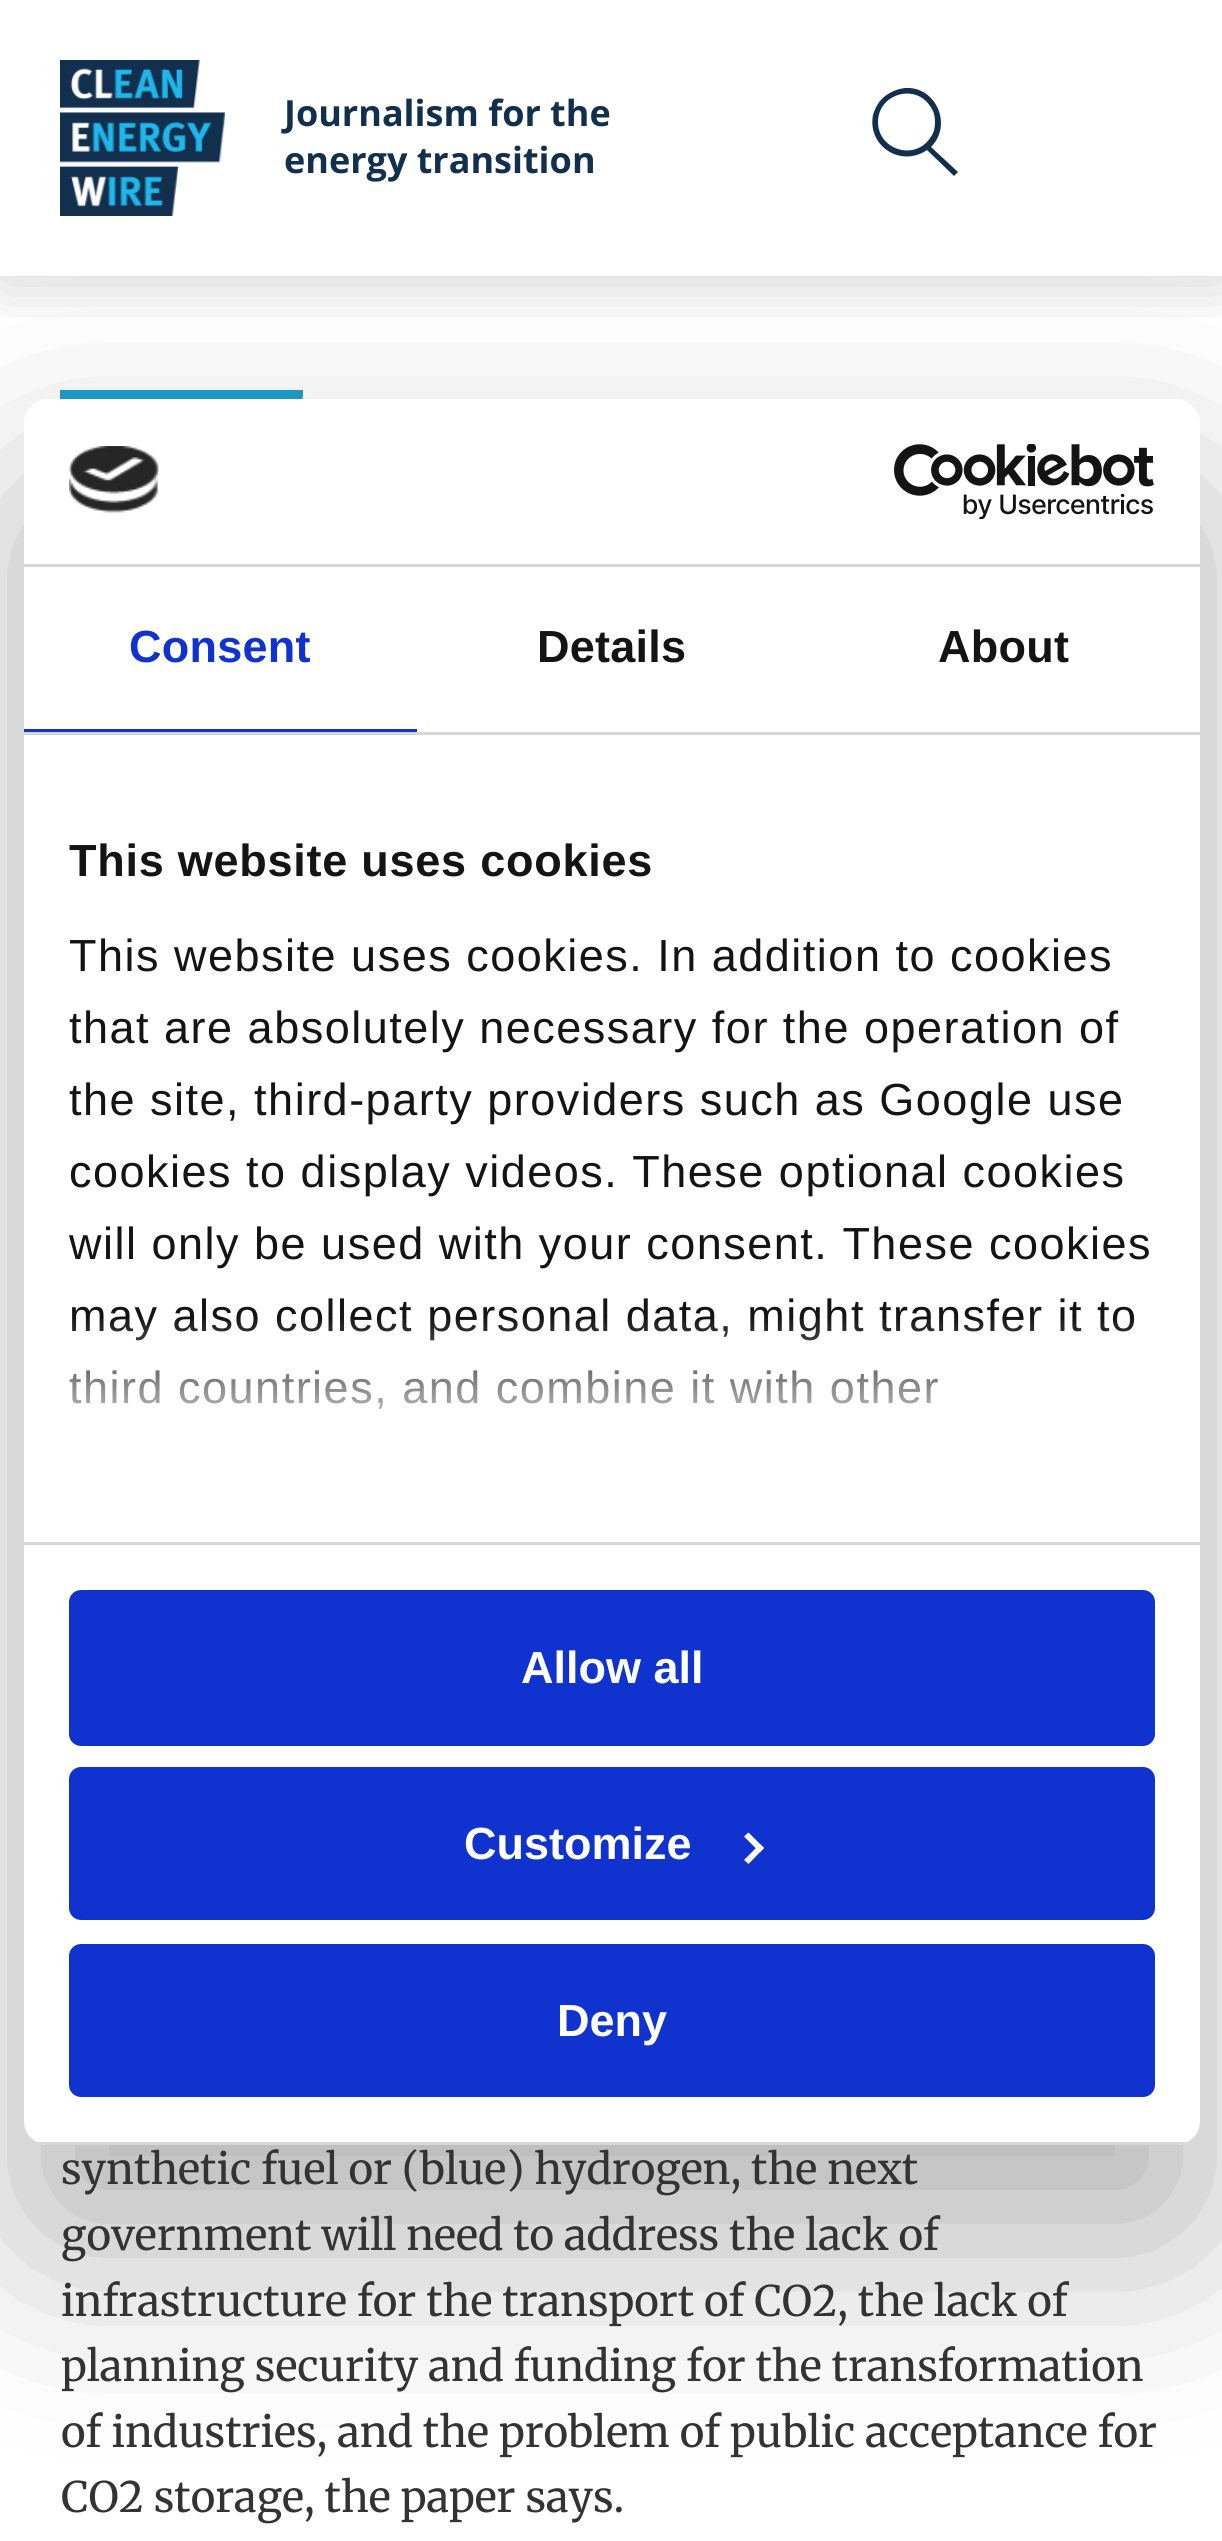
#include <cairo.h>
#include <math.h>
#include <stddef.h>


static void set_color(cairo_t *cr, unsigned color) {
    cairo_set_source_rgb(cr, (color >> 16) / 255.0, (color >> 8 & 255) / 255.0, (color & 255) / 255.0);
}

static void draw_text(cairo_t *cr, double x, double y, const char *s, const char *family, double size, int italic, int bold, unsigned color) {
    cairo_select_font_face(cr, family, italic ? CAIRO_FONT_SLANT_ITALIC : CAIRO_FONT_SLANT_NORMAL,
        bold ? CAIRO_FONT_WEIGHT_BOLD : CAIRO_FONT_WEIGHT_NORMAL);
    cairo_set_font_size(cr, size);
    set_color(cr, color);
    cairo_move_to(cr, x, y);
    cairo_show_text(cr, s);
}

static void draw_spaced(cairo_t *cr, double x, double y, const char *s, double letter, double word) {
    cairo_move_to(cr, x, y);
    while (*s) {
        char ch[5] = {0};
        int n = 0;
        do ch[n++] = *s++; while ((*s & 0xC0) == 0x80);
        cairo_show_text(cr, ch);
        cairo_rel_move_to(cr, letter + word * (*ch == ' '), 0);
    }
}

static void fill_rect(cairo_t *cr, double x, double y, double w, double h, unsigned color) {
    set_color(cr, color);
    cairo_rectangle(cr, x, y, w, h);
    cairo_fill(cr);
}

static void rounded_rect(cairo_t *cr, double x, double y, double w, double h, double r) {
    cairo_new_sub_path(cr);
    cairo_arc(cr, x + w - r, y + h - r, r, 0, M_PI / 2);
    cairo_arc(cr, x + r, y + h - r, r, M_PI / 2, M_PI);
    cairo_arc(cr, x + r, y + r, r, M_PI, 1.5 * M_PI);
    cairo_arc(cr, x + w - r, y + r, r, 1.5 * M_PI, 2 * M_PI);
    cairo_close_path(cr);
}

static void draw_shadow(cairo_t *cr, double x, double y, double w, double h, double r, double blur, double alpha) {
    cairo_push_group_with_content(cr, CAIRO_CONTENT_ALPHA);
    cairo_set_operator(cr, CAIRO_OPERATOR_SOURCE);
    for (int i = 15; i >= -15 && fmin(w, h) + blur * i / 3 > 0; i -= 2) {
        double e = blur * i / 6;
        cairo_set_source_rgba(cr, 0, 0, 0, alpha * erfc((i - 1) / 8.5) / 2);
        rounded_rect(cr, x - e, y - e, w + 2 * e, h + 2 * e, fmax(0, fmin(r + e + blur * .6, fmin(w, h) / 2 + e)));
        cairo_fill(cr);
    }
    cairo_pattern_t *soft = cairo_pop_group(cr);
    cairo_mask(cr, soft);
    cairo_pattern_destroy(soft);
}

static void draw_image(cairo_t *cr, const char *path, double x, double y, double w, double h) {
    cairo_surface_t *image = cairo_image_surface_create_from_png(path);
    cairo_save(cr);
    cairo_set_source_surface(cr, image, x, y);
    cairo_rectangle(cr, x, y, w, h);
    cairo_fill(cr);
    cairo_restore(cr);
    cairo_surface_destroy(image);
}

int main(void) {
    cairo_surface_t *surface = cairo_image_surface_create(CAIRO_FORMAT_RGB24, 1222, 2541);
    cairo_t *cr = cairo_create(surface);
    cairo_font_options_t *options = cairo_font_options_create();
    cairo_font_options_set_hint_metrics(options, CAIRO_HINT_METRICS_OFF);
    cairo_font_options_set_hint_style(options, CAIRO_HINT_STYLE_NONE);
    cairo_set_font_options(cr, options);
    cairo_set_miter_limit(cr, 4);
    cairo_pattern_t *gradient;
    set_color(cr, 0xFFFFFF);
    cairo_paint(cr);
    cairo_save(cr);
    cairo_rectangle(cr, 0, 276, 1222, 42);
    cairo_clip(cr);
    set_color(cr, 0x000000);
    draw_shadow(cr, 0, 6, 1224, 276, 0, 30, 0.17);
    cairo_restore(cr);
    draw_image(cr, "assets/img1.png", 60, 60, 165, 156);
    draw_text(cr, 284, 126, "Journalism for the", "Open Sans", 36, 0, 1, 0x122F4E);
    draw_text(cr, 284, 173, "energy transition", "Open Sans", 36, 0, 1, 0x122F4E);
    cairo_new_path(cr);
    cairo_move_to(cr, 958, 172);
    cairo_line_to(cr, 931, 147);
    cairo_curve_to(cr, 953, 125, 936, 86, 905, 88);
    cairo_curve_to(cr, 897, 89, 890, 92, 884, 97);
    cairo_curve_to(cr, 879, 101, 875, 108, 873, 115);
    cairo_curve_to(cr, 867, 146, 901, 168, 927, 150);
    cairo_line_to(cr, 954, 176);
    cairo_close_path(cr);
    cairo_move_to(cr, 878, 122);
    cairo_curve_to(cr, 878, 94, 915, 83, 930, 106);
    cairo_curve_to(cr, 934, 111, 935, 117, 935, 122);
    cairo_curve_to(cr, 935, 128, 934, 133, 930, 138);
    cairo_curve_to(cr, 915, 161, 878, 150, 878, 122);
    cairo_close_path(cr);
    cairo_fill(cr);
    fill_rect(cr, 60, 390, 231, 9, 0x1E9FCF);
    cairo_new_path(cr);
    cairo_move_to(cr, 291, 480);
    cairo_line_to(cr, 291, 390);
    cairo_line_to(cr, 303, 390);
    cairo_line_to(cr, 303, 396);
    cairo_close_path(cr);
    cairo_fill(cr);
    set_color(cr, 0x000000);
    draw_shadow(cr, 24, 495, 1176, 1746, 24, 102, 0.3);
    set_color(cr, 0xFFFFFF);
    rounded_rect(cr, 24, 399, 1176, 1746, 24);
    cairo_fill(cr);
    fill_rect(cr, 24, 564, 1176, 3, 0xD6D6D6);
    draw_image(cr, "assets/img2.png", 69, 446, 90, 67);
    draw_image(cr, "assets/img3.png", 894, 444, 260, 75);
    fill_rect(cr, 24, 732, 1176, 3, 0xD6D6D6);
    fill_rect(cr, 24, 729, 393, 3, 0x1032CF);
    cairo_select_font_face(cr, "Liberation Sans", CAIRO_FONT_SLANT_NORMAL, CAIRO_FONT_WEIGHT_BOLD);
    cairo_set_font_size(cr, 45);
    draw_spaced(cr, 129, 662, "Consent", 0.25, 0);
    set_color(cr, 0x141414);
    draw_spaced(cr, 537, 662, "Details", 0.25, 0);
    draw_spaced(cr, 938, 662, "About", 0.25, 0);
    fill_rect(cr, 24, 1542, 1176, 3, 0xD6D6D6);
    set_color(cr, 0x141414);
    draw_spaced(cr, 69, 876, "This website uses cookies", 0.75, 0);
    cairo_select_font_face(cr, "Liberation Sans", CAIRO_FONT_SLANT_NORMAL, CAIRO_FONT_WEIGHT_NORMAL);
    draw_spaced(cr, 69, 971, "This website uses cookies. In addition to cookies", 1.5, 0);
    draw_spaced(cr, 69, 1043, "that are absolutely necessary for the operation of", 1.5, 0);
    draw_spaced(cr, 69, 1115, "the site, third-party providers such as Google use", 1.5, 0);
    draw_spaced(cr, 69, 1187, "cookies to display videos. These optional cookies", 1.5, 0);
    draw_spaced(cr, 69, 1259, "will only be used with your consent. These cookies", 1.5, 0);
    draw_spaced(cr, 69, 1331, "may also collect personal data, might transfer it to", 1.5, 0);
    draw_spaced(cr, 69, 1403, "third countries, and combine it with other", 1.5, 0);
    gradient = cairo_pattern_create_linear(593, 1541, 593, 1316);
    cairo_pattern_add_color_stop_rgba(gradient, 0, 1, 1, 1, 1);
    cairo_pattern_add_color_stop_rgba(gradient, 0.5, 1, 1, 1, 0.8);
    cairo_pattern_add_color_stop_rgba(gradient, 1, 1, 1, 1, 0);
    cairo_set_source(cr, gradient);
    cairo_pattern_destroy(gradient);
    cairo_rectangle(cr, 69, 1319, 1065, 90);
    cairo_fill(cr);
    cairo_save(cr);
    rounded_rect(cr, 24, 399, 1176, 1746, 24);
    cairo_clip(cr);
    fill_rect(cr, 36, 2142, 1152, 3, 0xD6D6D6);
    cairo_restore(cr);
    set_color(cr, 0x1032CF);
    rounded_rect(cr, 72, 1593, 1080, 150, 9);
    cairo_fill_preserve(cr);
    cairo_set_line_width(cr, 6);
    cairo_stroke(cr);
    draw_text(cr, 521, 1683, "Allow all", "Liberation Sans", 45, 0, 1, 0xFFFFFF);
    set_color(cr, 0x1032CF);
    rounded_rect(cr, 72, 1770, 1080, 147, 9);
    cairo_fill_preserve(cr);
    cairo_stroke(cr);
    draw_text(cr, 464, 1859, "Customize", "Liberation Sans", 45, 0, 1, 0xFFFFFF);
    cairo_new_path(cr);
    cairo_move_to(cr, 748.5, 1832.5);
    cairo_line_to(cr, 764, 1848);
    cairo_line_to(cr, 760, 1852.5);
    cairo_line_to(cr, 744, 1836.5);
    cairo_close_path(cr);
    cairo_fill(cr);
    cairo_new_path(cr);
    cairo_move_to(cr, 760, 1844);
    cairo_line_to(cr, 764, 1848);
    cairo_line_to(cr, 748.5, 1864);
    cairo_line_to(cr, 744, 1860);
    cairo_close_path(cr);
    cairo_fill(cr);
    set_color(cr, 0x1032CF);
    rounded_rect(cr, 72, 1947, 1080, 147, 9);
    cairo_fill_preserve(cr);
    cairo_stroke(cr);
    draw_text(cr, 557, 2036, "Deny", "Liberation Sans", 45, 0, 1, 0xFFFFFF);
    draw_text(cr, 61, 2184, "synthetic fuel or (blue) hydrogen, the next", "Merriweather", 42, 0, 0, 0x333333);
    draw_text(cr, 61, 2250, "government will need to address the lack of", "Merriweather", 42, 0, 0, 0x333333);
    draw_text(cr, 61, 2316, "infrastructure for the transport of CO2, the lack of", "Merriweather", 42, 0, 0, 0x333333);
    draw_text(cr, 61, 2381, "planning security and funding for the transformation", "Merriweather", 42, 0, 0, 0x333333);
    draw_text(cr, 61, 2447, "of industries, and the problem of public acceptance for", "Merriweather", 42, 0, 0, 0x333333);
    draw_text(cr, 61, 2512, "CO2 storage, the paper says.", "Merriweather", 42, 0, 0, 0x333333);
    cairo_surface_write_to_png(surface, "output.png");
    cairo_font_options_destroy(options);
    cairo_destroy(cr);
    cairo_surface_destroy(surface);
    return 0;
}
